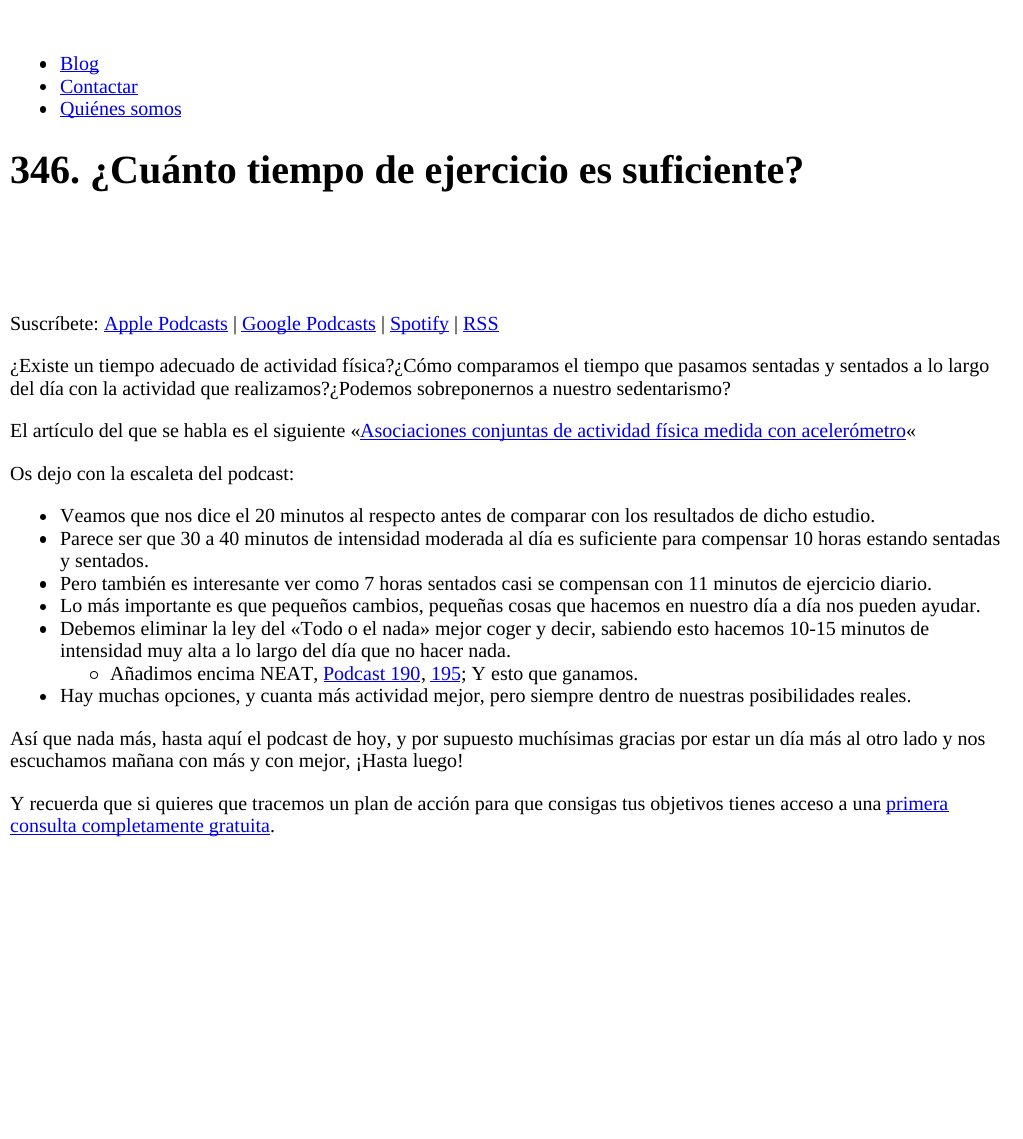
#include <cairo.h>
#include <math.h>
#include <stddef.h>


static void set_color(cairo_t *cr, unsigned color) {
    cairo_set_source_rgb(cr, (color >> 16) / 255.0, (color >> 8 & 255) / 255.0, (color & 255) / 255.0);
}

static void draw_text(cairo_t *cr, double x, double y, const char *s, const char *family, double size, int italic, int bold, unsigned color) {
    cairo_select_font_face(cr, family, italic ? CAIRO_FONT_SLANT_ITALIC : CAIRO_FONT_SLANT_NORMAL,
        bold ? CAIRO_FONT_WEIGHT_BOLD : CAIRO_FONT_WEIGHT_NORMAL);
    cairo_set_font_size(cr, size);
    set_color(cr, color);
    cairo_move_to(cr, x, y);
    cairo_show_text(cr, s);
}

static void fill_rect(cairo_t *cr, double x, double y, double w, double h, unsigned color) {
    set_color(cr, color);
    cairo_rectangle(cr, x, y, w, h);
    cairo_fill(cr);
}

static void rounded_rect(cairo_t *cr, double x, double y, double w, double h, double r) {
    cairo_new_sub_path(cr);
    cairo_arc(cr, x + w - r, y + h - r, r, 0, M_PI / 2);
    cairo_arc(cr, x + r, y + h - r, r, M_PI / 2, M_PI);
    cairo_arc(cr, x + r, y + r, r, M_PI, 1.5 * M_PI);
    cairo_arc(cr, x + w - r, y + r, r, 1.5 * M_PI, 2 * M_PI);
    cairo_close_path(cr);
}

int main(void) {
    cairo_surface_t *surface = cairo_image_surface_create(CAIRO_FORMAT_RGB24, 1023, 1139);
    cairo_t *cr = cairo_create(surface);
    cairo_font_options_t *options = cairo_font_options_create();
    cairo_font_options_set_hint_metrics(options, CAIRO_HINT_METRICS_OFF);
    cairo_font_options_set_hint_style(options, CAIRO_HINT_STYLE_NONE);
    cairo_set_font_options(cr, options);
    cairo_set_miter_limit(cr, 4);
    set_color(cr, 0xFFFFFF);
    cairo_paint(cr);
    set_color(cr, 0x000000);
    rounded_rect(cr, 40, 61, 6, 7, 3);
    cairo_fill(cr);
    fill_rect(cr, 60, 71, 39, 1, 0x0000EE);
    draw_text(cr, 60, 70, "Blog", "Liberation Serif", 20, 0, 0, 0x0000EE);
    set_color(cr, 0x000000);
    cairo_new_path(cr);
    cairo_arc(cr, 43, 87, 3, 0, 2 * M_PI);
    cairo_fill(cr);
    draw_text(cr, 60, 93, "Contactar", "Liberation Serif", 20, 0, 0, 0x0000EE);
    fill_rect(cr, 60, 94, 78, 1, 0x0000EE);
    set_color(cr, 0x000000);
    rounded_rect(cr, 40, 106, 6, 7, 3);
    cairo_fill(cr);
    fill_rect(cr, 60, 116, 121, 1, 0x0000EE);
    draw_text(cr, 60, 115, "Quiénes somos", "Liberation Serif", 20, 0, 0, 0x0000EE);
    draw_text(cr, 10, 183, "346. ¿Cuánto tiempo de ejercicio es suficiente?", "Liberation Serif", 40, 0, 1, 0x000000);
    draw_text(cr, 10, 330, "Suscríbete:", "Liberation Serif", 20, 0, 0, 0x000000);
    fill_rect(cr, 104, 331, 124, 1, 0x0000EE);
    draw_text(cr, 104, 330, "Apple Podcasts", "Liberation Serif", 20, 0, 0, 0x0000EE);
    draw_text(cr, 233, 330, "|", "Liberation Serif", 20, 0, 0, 0x000000);
    fill_rect(cr, 241, 331, 135, 1, 0x0000EE);
    draw_text(cr, 242, 330, "Google Podcasts", "Liberation Serif", 20, 0, 0, 0x0000EE);
    draw_text(cr, 381, 330, "|", "Liberation Serif", 20, 0, 0, 0x000000);
    fill_rect(cr, 390, 331, 59, 1, 0x0000EE);
    draw_text(cr, 390, 330, "Spotify", "Liberation Serif", 20, 0, 0, 0x0000EE);
    draw_text(cr, 454, 330, "|", "Liberation Serif", 20, 0, 0, 0x000000);
    draw_text(cr, 463, 330, "RSS", "Liberation Serif", 20, 0, 0, 0x0000EE);
    fill_rect(cr, 463, 331, 36, 1, 0x0000EE);
    draw_text(cr, 10, 372, "¿Existe un tiempo adecuado de actividad física?¿Cómo comparamos el tiempo que pasamos sentadas y sentados a lo largo", "Liberation Serif", 20, 0, 0, 0x000000);
    draw_text(cr, 10, 395, "del día con la actividad que realizamos?¿Podemos sobreponernos a nuestro sedentarismo?", "Liberation Serif", 20, 0, 0, 0x000000);
    draw_text(cr, 10, 437, "El artículo del que se habla es el siguiente «", "Liberation Serif", 20, 0, 0, 0x000000);
    fill_rect(cr, 360, 439, 546, 1, 0x0000EE);
    draw_text(cr, 360, 437, "Asociaciones conjuntas de actividad física medida con acelerómetro", "Liberation Serif", 20, 0, 0, 0x0000EE);
    draw_text(cr, 906, 437, "«", "Liberation Serif", 20, 0, 0, 0x000000);
    draw_text(cr, 10, 480, "Os dejo con la escaleta del podcast:", "Liberation Serif", 20, 0, 0, 0x000000);
    cairo_new_path(cr);
    cairo_arc(cr, 43, 517, 3, 0, 2 * M_PI);
    cairo_fill(cr);
    draw_text(cr, 60, 522, "Veamos que nos dice el 20 minutos al respecto antes de comparar con los resultados de dicho estudio.", "Liberation Serif", 20, 0, 0, 0x000000);
    rounded_rect(cr, 40, 536, 6, 7, 3);
    cairo_fill(cr);
    draw_text(cr, 60, 545, "Parece ser que 30 a 40 minutos de intensidad moderada al día es suficiente para compensar 10 horas estando sentadas", "Liberation Serif", 20, 0, 0, 0x000000);
    draw_text(cr, 60, 567, "y sentados.", "Liberation Serif", 20, 0, 0, 0x000000);
    rounded_rect(cr, 40, 581, 6, 7, 3);
    cairo_fill(cr);
    draw_text(cr, 60, 590, "Pero también es interesante ver como 7 horas sentados casi se compensan con 11 minutos de ejercicio diario.", "Liberation Serif", 20, 0, 0, 0x000000);
    cairo_new_path(cr);
    cairo_arc(cr, 43, 607, 3, 0, 2 * M_PI);
    cairo_fill(cr);
    draw_text(cr, 60, 612, "Lo más importante es que pequeños cambios, pequeñas cosas que hacemos en nuestro día a día nos pueden ayudar.", "Liberation Serif", 20, 0, 0, 0x000000);
    rounded_rect(cr, 40, 626, 6, 7, 3);
    cairo_fill(cr);
    draw_text(cr, 60, 635, "Debemos eliminar la ley del «Todo o el nada» mejor coger y decir, sabiendo esto hacemos 10-15 minutos de", "Liberation Serif", 20, 0, 0, 0x000000);
    draw_text(cr, 60, 657, "intensidad muy alta a lo largo del día que no hacer nada.", "Liberation Serif", 20, 0, 0, 0x000000);
    cairo_new_path(cr);
    cairo_arc(cr, 94, 675, 3.5, 0, 2 * M_PI);
    cairo_set_line_width(cr, 1);
    cairo_stroke(cr);
    draw_text(cr, 110, 680, "Añadimos encima NEAT,", "Liberation Serif", 20, 0, 0, 0x000000);
    draw_text(cr, 323, 680, "Podcast 190", "Liberation Serif", 20, 0, 0, 0x0000EE);
    fill_rect(cr, 324, 681, 96, 1, 0x0000EE);
    draw_text(cr, 431, 680, "195", "Liberation Serif", 20, 0, 0, 0x0000EE);
    fill_rect(cr, 430, 681, 30, 1, 0x0000EE);
    draw_text(cr, 461, 680, "; Y esto que ganamos.", "Liberation Serif", 20, 0, 0, 0x000000);
    draw_text(cr, 421, 680, ",", "Liberation Serif", 20, 0, 0, 0x000000);
    cairo_new_path(cr);
    cairo_arc(cr, 43, 697, 3, 0, 2 * M_PI);
    cairo_fill(cr);
    draw_text(cr, 60, 702, "Hay muchas opciones, y cuanta más actividad mejor, pero siempre dentro de nuestras posibilidades reales.", "Liberation Serif", 20, 0, 0, 0x000000);
    draw_text(cr, 10, 745, "Así que nada más, hasta aquí el podcast de hoy, y por supuesto muchísimas gracias por estar un día más al otro lado y nos", "Liberation Serif", 20, 0, 0, 0x000000);
    draw_text(cr, 10, 767, "escuchamos mañana con más y con mejor, ¡Hasta luego!", "Liberation Serif", 20, 0, 0, 0x000000);
    draw_text(cr, 10, 810, "Y recuerda que si quieres que tracemos un plan de acción para que consigas tus objetivos tienes acceso a una", "Liberation Serif", 20, 0, 0, 0x000000);
    fill_rect(cr, 886, 811, 63, 1, 0x0000EE);
    draw_text(cr, 886, 810, "primera", "Liberation Serif", 20, 0, 0, 0x0000EE);
    fill_rect(cr, 10, 834, 260, 1, 0x0000EE);
    draw_text(cr, 10, 832, "consulta completamente gratuita", "Liberation Serif", 20, 0, 0, 0x0000EE);
    draw_text(cr, 270, 832, ".", "Liberation Serif", 20, 0, 0, 0x000000);
    cairo_surface_write_to_png(surface, "output.png");
    cairo_font_options_destroy(options);
    cairo_destroy(cr);
    cairo_surface_destroy(surface);
    return 0;
}
